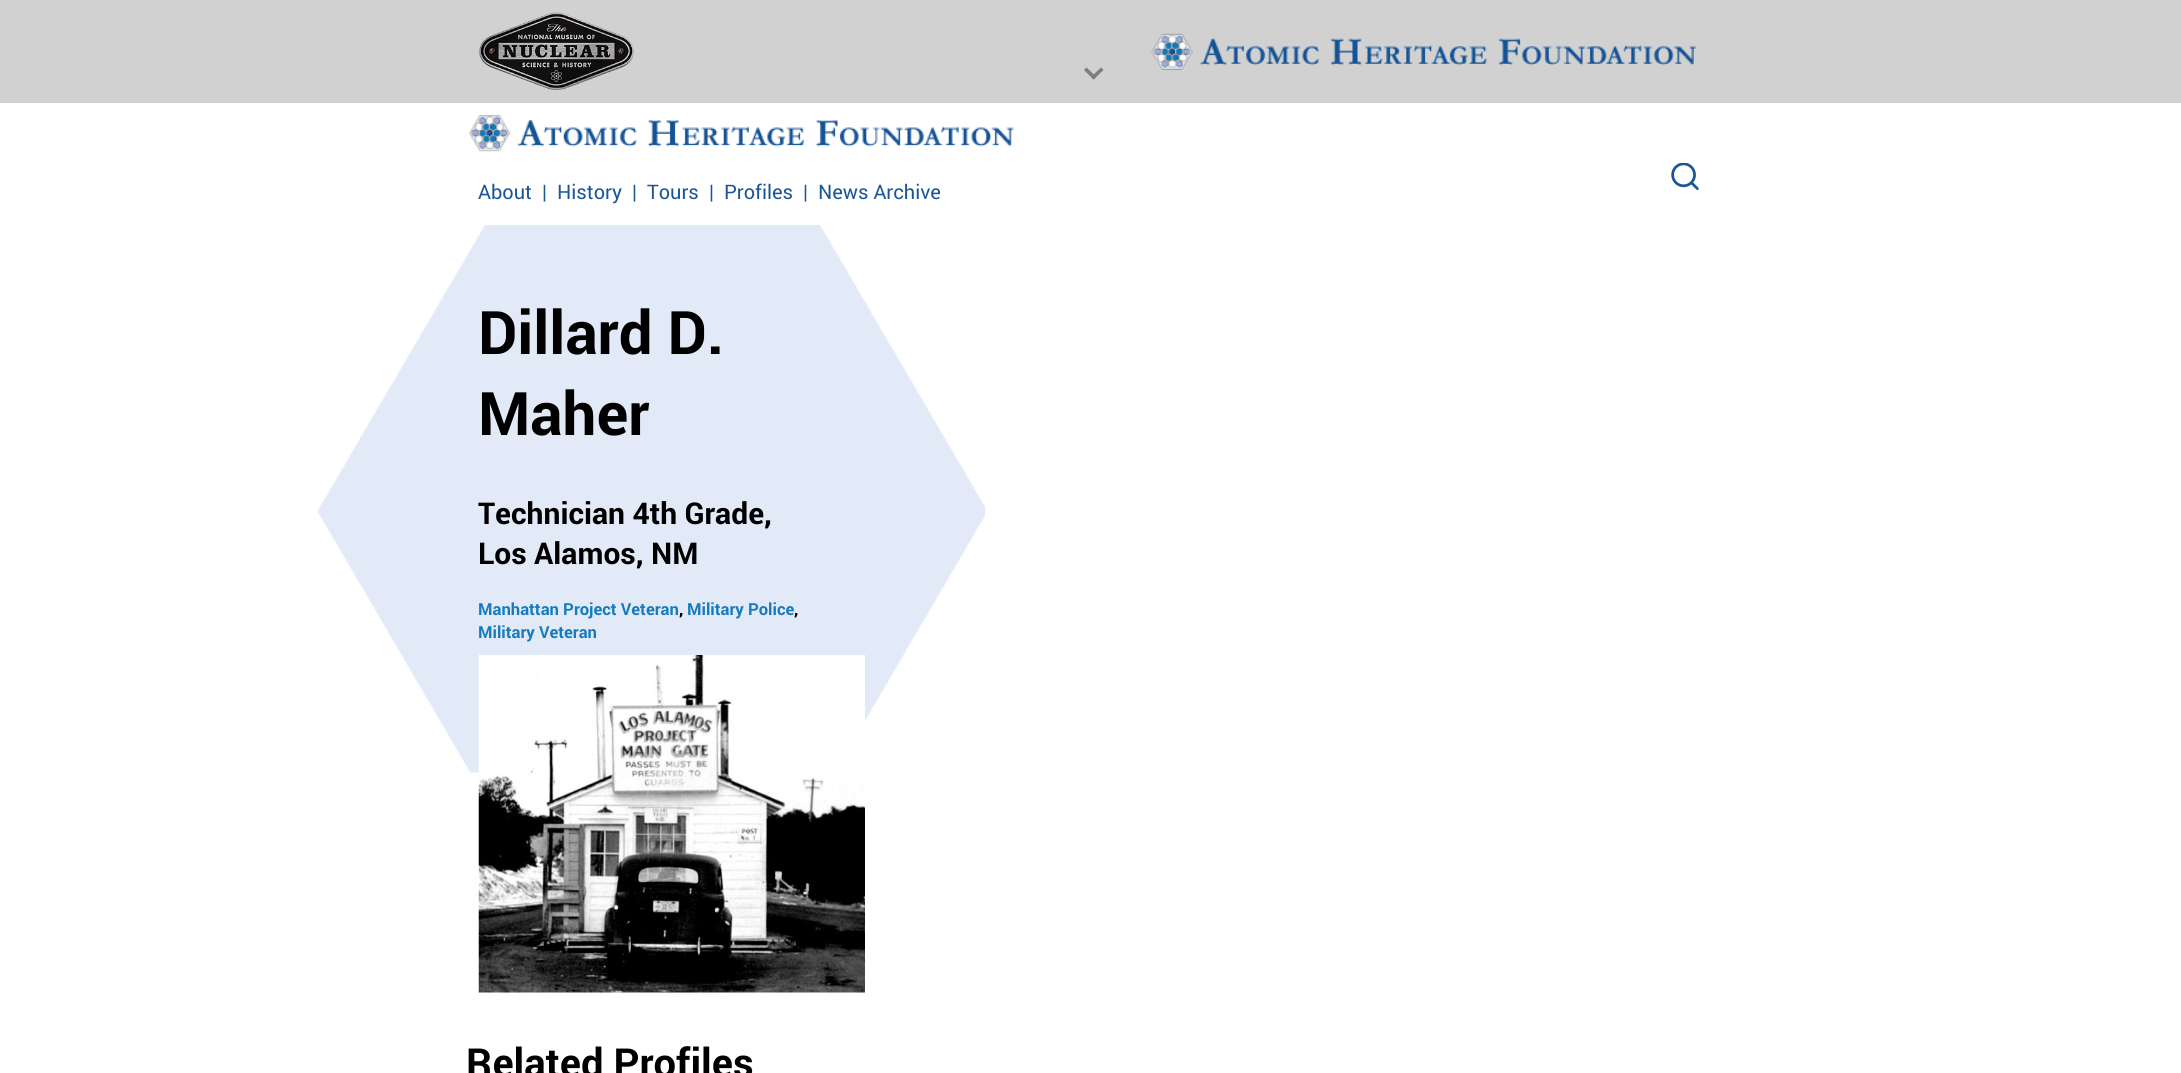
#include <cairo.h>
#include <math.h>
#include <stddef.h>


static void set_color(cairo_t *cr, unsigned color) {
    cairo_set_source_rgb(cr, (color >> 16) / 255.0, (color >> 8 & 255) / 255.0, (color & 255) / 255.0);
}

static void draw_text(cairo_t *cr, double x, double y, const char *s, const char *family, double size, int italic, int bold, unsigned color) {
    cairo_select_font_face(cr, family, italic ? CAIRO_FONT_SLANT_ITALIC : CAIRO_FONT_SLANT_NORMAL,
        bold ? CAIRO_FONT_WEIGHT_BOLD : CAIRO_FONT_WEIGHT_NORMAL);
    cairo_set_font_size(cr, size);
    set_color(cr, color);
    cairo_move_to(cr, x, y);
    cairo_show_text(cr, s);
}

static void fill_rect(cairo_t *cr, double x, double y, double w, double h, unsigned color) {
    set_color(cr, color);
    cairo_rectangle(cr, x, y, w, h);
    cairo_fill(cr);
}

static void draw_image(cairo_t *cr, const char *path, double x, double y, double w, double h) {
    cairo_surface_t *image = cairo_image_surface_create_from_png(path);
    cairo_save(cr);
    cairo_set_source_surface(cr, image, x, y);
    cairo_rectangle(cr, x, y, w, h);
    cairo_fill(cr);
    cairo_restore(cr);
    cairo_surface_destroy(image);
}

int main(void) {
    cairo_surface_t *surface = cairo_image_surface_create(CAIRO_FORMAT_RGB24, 2181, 1073);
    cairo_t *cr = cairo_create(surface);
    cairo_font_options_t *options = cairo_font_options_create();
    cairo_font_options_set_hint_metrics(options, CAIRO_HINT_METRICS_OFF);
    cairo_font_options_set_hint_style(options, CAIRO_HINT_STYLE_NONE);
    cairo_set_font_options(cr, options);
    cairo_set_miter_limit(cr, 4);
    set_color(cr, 0xFFFFFF);
    cairo_paint(cr);
    fill_rect(cr, 0, 0, 2181, 103, 0xD1D1D1);
    draw_image(cr, "assets/img1.png", 479, 12, 155, 78);
    draw_image(cr, "assets/img2.png", 1151, 33, 546, 37);
    set_color(cr, 0x7D7D7D);
    cairo_new_path(cr);
    cairo_move_to(cr, 1101, 67.5);
    cairo_line_to(cr, 1103.5, 70);
    cairo_line_to(cr, 1093.5, 79.5);
    cairo_line_to(cr, 1091, 77);
    cairo_close_path(cr);
    cairo_fill(cr);
    cairo_new_path(cr);
    cairo_move_to(cr, 1086.5, 67.5);
    cairo_line_to(cr, 1096.5, 77);
    cairo_line_to(cr, 1093.5, 79.5);
    cairo_line_to(cr, 1084, 70);
    cairo_close_path(cr);
    cairo_fill(cr);
    draw_image(cr, "assets/img3.png", 468, 115, 546, 37);
    draw_image(cr, "assets/img4.png", 1671, 163, 28, 27);
    draw_text(cr, 478, 199, "About", "roboto", 20, 0, 0, 0x1A5595);
    draw_text(cr, 542, 199, "|", "roboto", 20, 0, 0, 0x1A5595);
    draw_text(cr, 557, 199, "History", "roboto", 20, 0, 0, 0x1A5595);
    draw_text(cr, 632, 199, "|", "roboto", 20, 0, 0, 0x1A5595);
    draw_text(cr, 647, 199, "Tours", "roboto", 20, 0, 0, 0x1A5595);
    draw_text(cr, 709, 199, "|", "roboto", 20, 0, 0, 0x1A5595);
    draw_text(cr, 724, 199, "Profiles", "roboto", 20, 0, 0, 0x1A5595);
    draw_text(cr, 803, 199, "|", "roboto", 20, 0, 0, 0x1A5595);
    draw_text(cr, 818, 199, "News Archive", "roboto", 20, 0, 0, 0x1A5595);
    draw_image(cr, "assets/img5.png", 317, 225, 668, 548);
    draw_text(cr, 478, 354, "Dillard D.", "roboto", 60, 0, 1, 0x000000);
    draw_text(cr, 478, 435, "Maher", "roboto", 60, 0, 1, 0x000000);
    draw_text(cr, 478, 524, "Technician 4th Grade,", "roboto", 30, 0, 1, 0x000000);
    draw_text(cr, 478, 564, "Los Alamos, NM", "roboto", 30, 0, 1, 0x000000);
    draw_text(cr, 478, 615, "Manhattan Project Veteran", "roboto", 16.6, 0, 1, 0x167BBC);
    draw_text(cr, 679, 615, ",", "roboto", 16.6, 0, 1, 0x000000);
    draw_text(cr, 687, 615, "Military Police", "roboto", 16.6, 0, 1, 0x167BBC);
    draw_text(cr, 794, 615, ",", "roboto", 16.6, 0, 1, 0x000000);
    draw_text(cr, 478, 638, "Military Veteran", "roboto", 16.6, 0, 1, 0x167BBC);
    draw_image(cr, "assets/img6.png", 478, 655, 387, 338);
    draw_text(cr, 466, 1077, "Related Profiles", "roboto", 40, 0, 1, 0x000000);
    cairo_surface_write_to_png(surface, "output.png");
    cairo_font_options_destroy(options);
    cairo_destroy(cr);
    cairo_surface_destroy(surface);
    return 0;
}
